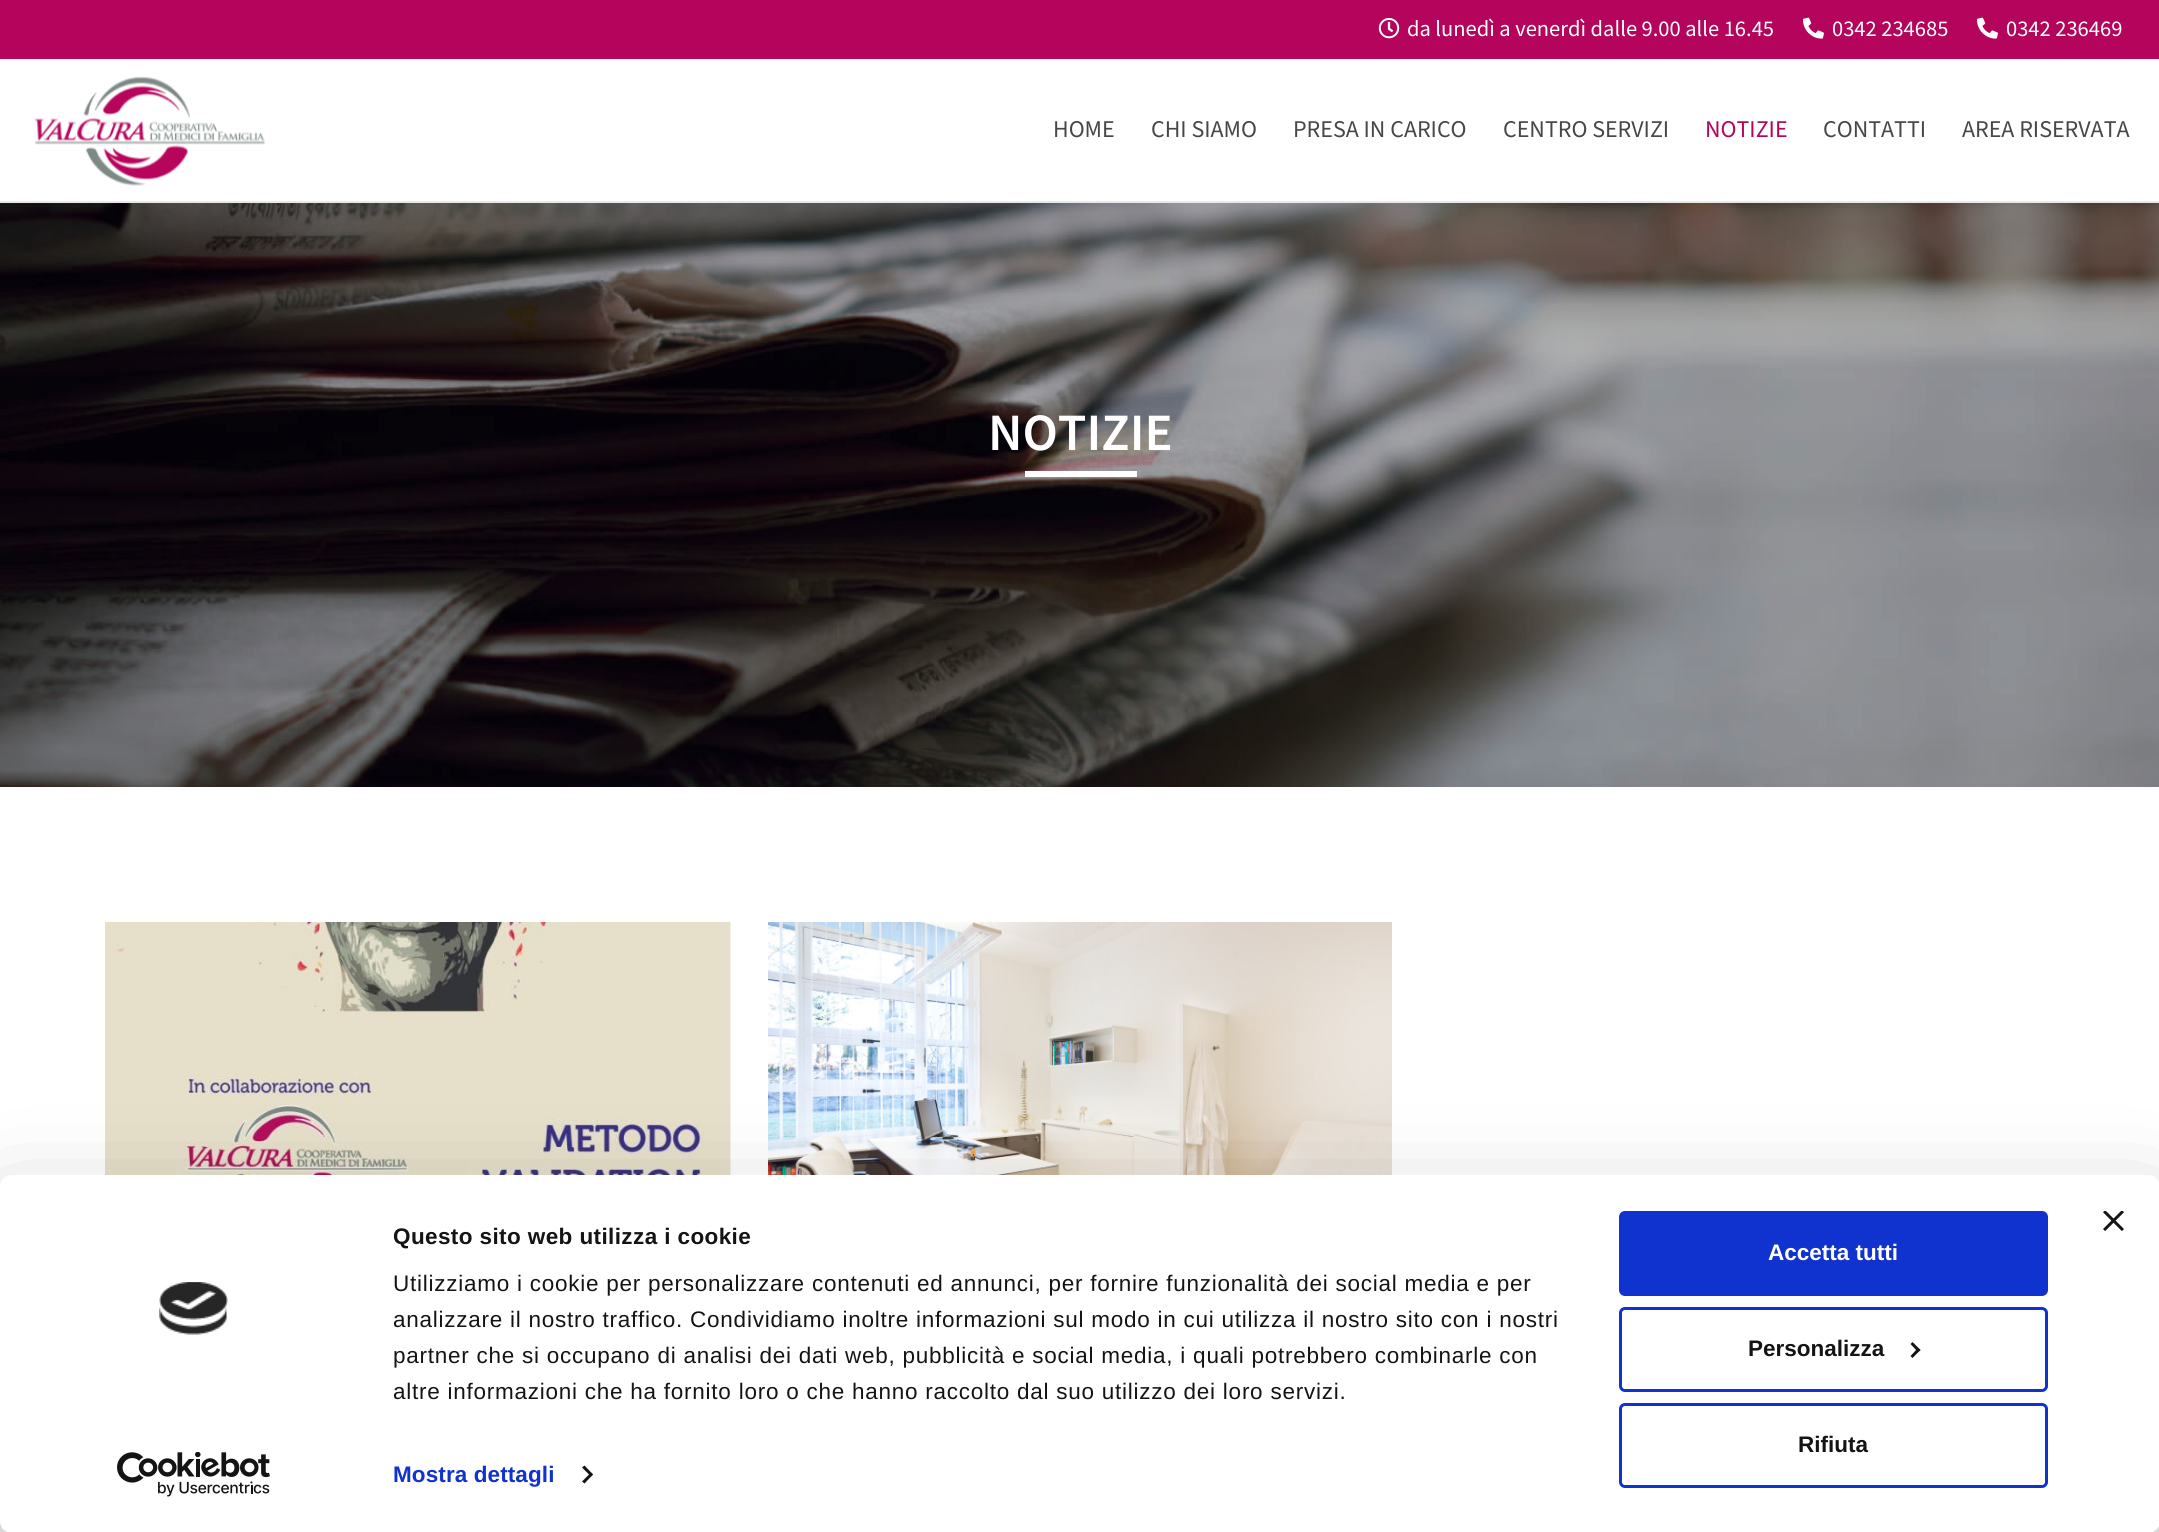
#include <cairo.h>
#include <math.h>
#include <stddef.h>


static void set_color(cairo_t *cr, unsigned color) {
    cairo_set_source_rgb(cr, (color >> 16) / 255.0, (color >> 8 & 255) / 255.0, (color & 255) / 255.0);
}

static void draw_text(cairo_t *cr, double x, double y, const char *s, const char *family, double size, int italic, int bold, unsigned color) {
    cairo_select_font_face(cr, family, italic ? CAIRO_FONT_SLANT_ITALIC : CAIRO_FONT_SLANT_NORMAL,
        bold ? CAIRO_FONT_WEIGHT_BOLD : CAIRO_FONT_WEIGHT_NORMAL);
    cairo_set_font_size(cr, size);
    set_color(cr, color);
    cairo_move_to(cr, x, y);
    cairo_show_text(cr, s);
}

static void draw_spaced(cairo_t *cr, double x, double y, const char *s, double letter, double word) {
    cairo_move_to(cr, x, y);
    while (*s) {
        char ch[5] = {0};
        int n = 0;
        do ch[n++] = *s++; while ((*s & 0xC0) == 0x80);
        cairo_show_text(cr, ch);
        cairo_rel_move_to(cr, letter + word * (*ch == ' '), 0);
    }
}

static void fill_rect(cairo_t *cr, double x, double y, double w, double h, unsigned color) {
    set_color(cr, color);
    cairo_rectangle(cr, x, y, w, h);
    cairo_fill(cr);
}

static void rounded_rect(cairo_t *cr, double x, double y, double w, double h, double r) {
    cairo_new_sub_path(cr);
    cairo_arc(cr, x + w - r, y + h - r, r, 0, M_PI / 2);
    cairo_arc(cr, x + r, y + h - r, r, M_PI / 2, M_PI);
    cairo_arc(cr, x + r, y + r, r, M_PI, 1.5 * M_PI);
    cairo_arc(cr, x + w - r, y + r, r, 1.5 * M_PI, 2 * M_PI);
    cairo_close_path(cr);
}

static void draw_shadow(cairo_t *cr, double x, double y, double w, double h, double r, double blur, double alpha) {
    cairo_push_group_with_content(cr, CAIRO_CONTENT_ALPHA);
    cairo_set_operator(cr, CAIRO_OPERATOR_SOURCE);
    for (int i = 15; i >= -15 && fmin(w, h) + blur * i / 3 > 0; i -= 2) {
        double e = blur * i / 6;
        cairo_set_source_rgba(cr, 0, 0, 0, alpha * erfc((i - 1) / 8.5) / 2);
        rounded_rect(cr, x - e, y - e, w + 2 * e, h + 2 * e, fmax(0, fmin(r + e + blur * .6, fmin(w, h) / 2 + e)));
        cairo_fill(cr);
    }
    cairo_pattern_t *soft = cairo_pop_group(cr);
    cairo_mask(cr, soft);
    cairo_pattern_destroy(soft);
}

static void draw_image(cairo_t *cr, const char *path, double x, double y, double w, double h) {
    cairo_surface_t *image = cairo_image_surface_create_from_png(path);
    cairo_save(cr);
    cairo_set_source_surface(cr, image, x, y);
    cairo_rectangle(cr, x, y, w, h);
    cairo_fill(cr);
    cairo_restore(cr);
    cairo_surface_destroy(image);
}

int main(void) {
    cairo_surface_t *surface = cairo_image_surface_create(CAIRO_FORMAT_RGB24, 2159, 1532);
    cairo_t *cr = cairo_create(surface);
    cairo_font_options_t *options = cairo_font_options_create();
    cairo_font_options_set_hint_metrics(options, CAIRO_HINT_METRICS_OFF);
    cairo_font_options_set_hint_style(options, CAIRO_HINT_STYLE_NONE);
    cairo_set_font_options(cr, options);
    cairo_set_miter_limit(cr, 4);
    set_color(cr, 0xFFFFFF);
    cairo_paint(cr);
    fill_rect(cr, 0, 201, 2159, 2, 0xE9E9E9);
    fill_rect(cr, 0, 0, 2159, 59, 0xB4045C);
    draw_image(cr, "assets/img1.png", 1378, 18, 22, 21);
    draw_text(cr, 1407, 36, "da lunedì a venerdì dalle 9.00 alle 16.45", "Source Sans Pro", 22.5, 0, 0, 0xFFFFFF);
    draw_image(cr, "assets/img2.png", 1803, 17, 21, 22);
    draw_text(cr, 1832, 36, "0342 234685", "Source Sans Pro", 22.5, 0, 0, 0xFFFFFF);
    draw_image(cr, "assets/img2.png", 1977, 17, 21, 22);
    draw_text(cr, 2006, 36, "0342 236469", "Source Sans Pro", 22.5, 0, 0, 0xFFFFFF);
    draw_image(cr, "assets/img3.png", 34, 76, 232, 110);
    draw_text(cr, 1053, 137, "HOME", "Source Sans 3", 24, 0, 0, 0x474747);
    draw_text(cr, 1151, 137, "CHI SIAMO", "Source Sans 3", 24, 0, 0, 0x474747);
    draw_text(cr, 1293, 137, "PRESA IN CARICO", "Source Sans 3", 24, 0, 0, 0x474747);
    draw_text(cr, 1503, 137, "CENTRO SERVIZI", "Source Sans 3", 24, 0, 0, 0x474747);
    draw_text(cr, 1705, 137, "NOTIZIE", "Source Sans 3", 24, 0, 0, 0xB4045C);
    draw_text(cr, 1823, 137, "CONTATTI", "Source Sans 3", 24, 0, 0, 0x474747);
    draw_text(cr, 1962, 137, "AREA RISERVATA", "Source Sans 3", 24, 0, 0, 0x474747);
    draw_image(cr, "assets/img4.png", 0, 203, 2159, 584);
    draw_text(cr, 988, 450, "NOTIZIE", "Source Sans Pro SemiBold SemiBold", 52.5, 0, 0, 0xFFFFFF);
    fill_rect(cr, 1025, 471, 112, 6, 0xFFFFFF);
    fill_rect(cr, 730, 923, 1, 252, 0xF3F3F3);
    draw_image(cr, "assets/img5.png", 105, 922, 626, 253);
    draw_image(cr, "assets/img6.png", 768, 922, 624, 253);
    set_color(cr, 0x000000);
    draw_shadow(cr, 0, 1220, 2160, 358, 12, 52.5, 0.3);
    set_color(cr, 0xFFFFFF);
    rounded_rect(cr, 0, 1175, 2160, 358, 12);
    cairo_fill(cr);
    draw_image(cr, "assets/img7.png", 2103, 1211, 21, 20);
    draw_image(cr, "assets/img8.png", 159, 1282, 69, 53);
    draw_image(cr, "assets/img9.png", 117, 1452, 153, 45);
    cairo_select_font_face(cr, "Liberation Sans", CAIRO_FONT_SLANT_NORMAL, CAIRO_FONT_WEIGHT_BOLD);
    cairo_set_font_size(cr, 22.5);
    set_color(cr, 0x141414);
    draw_spaced(cr, 393, 1244, "Questo sito web utilizza i cookie", 0.4, 0);
    cairo_select_font_face(cr, "Liberation Sans", CAIRO_FONT_SLANT_NORMAL, CAIRO_FONT_WEIGHT_NORMAL);
    draw_spaced(cr, 393, 1291, "Utilizziamo i cookie per personalizzare contenuti ed annunci, per fornire funzionalità dei social media e per", 0.75, 0);
    draw_spaced(cr, 393, 1327, "analizzare il nostro traffico. Condividiamo inoltre informazioni sul modo in cui utilizza il nostro sito con i nostri", 0.75, 0);
    draw_spaced(cr, 393, 1363, "partner che si occupano di analisi dei dati web, pubblicità e social media, i quali potrebbero combinarle con", 0.75, 0);
    draw_spaced(cr, 393, 1399, "altre informazioni che ha fornito loro o che hanno raccolto dal suo utilizzo dei loro servizi.", 0.75, 0);
    cairo_select_font_face(cr, "Liberation Sans", CAIRO_FONT_SLANT_NORMAL, CAIRO_FONT_WEIGHT_BOLD);
    set_color(cr, 0x1032CF);
    draw_spaced(cr, 393, 1482, "Mostra dettagli", 0.1, 0);
    set_color(cr, 0x141414);
    cairo_new_path(cr);
    cairo_move_to(cr, 584.5, 1465.5);
    cairo_line_to(cr, 593, 1474.5);
    cairo_line_to(cr, 591, 1476.5);
    cairo_line_to(cr, 582, 1467.5);
    cairo_close_path(cr);
    cairo_fill(cr);
    cairo_new_path(cr);
    cairo_move_to(cr, 591, 1472.5);
    cairo_line_to(cr, 593, 1474.5);
    cairo_line_to(cr, 584.5, 1483.5);
    cairo_line_to(cr, 582, 1481.5);
    cairo_close_path(cr);
    cairo_fill(cr);
    set_color(cr, 0x1032CF);
    rounded_rect(cr, 1620.5, 1212.5, 426, 82, 4.5);
    cairo_fill_preserve(cr);
    cairo_set_line_width(cr, 3);
    cairo_stroke(cr);
    draw_text(cr, 1768, 1260, "Accetta tutti", "Liberation Sans", 22.5, 0, 1, 0xFFFFFF);
    rounded_rect(cr, 1620.5, 1308.5, 426, 82, 4.5);
    set_color(cr, 0x1032CF);
    cairo_stroke(cr);
    draw_text(cr, 1748, 1356, "Personalizza", "Liberation Sans", 22.5, 0, 1, 0x141414);
    cairo_new_path(cr);
    cairo_move_to(cr, 1912.5, 1342);
    cairo_line_to(cr, 1920.5, 1350);
    cairo_line_to(cr, 1918, 1352);
    cairo_line_to(cr, 1910.5, 1344);
    cairo_close_path(cr);
    cairo_fill(cr);
    cairo_new_path(cr);
    cairo_move_to(cr, 1918, 1348);
    cairo_line_to(cr, 1920.5, 1350);
    cairo_line_to(cr, 1912.5, 1358);
    cairo_line_to(cr, 1910.5, 1356);
    cairo_close_path(cr);
    cairo_fill(cr);
    rounded_rect(cr, 1620.5, 1404.5, 426, 82, 4.5);
    set_color(cr, 0x1032CF);
    cairo_stroke(cr);
    draw_text(cr, 1798, 1452, "Rifiuta", "Liberation Sans", 22.5, 0, 1, 0x141414);
    cairo_surface_write_to_png(surface, "output.png");
    cairo_font_options_destroy(options);
    cairo_destroy(cr);
    cairo_surface_destroy(surface);
    return 0;
}
